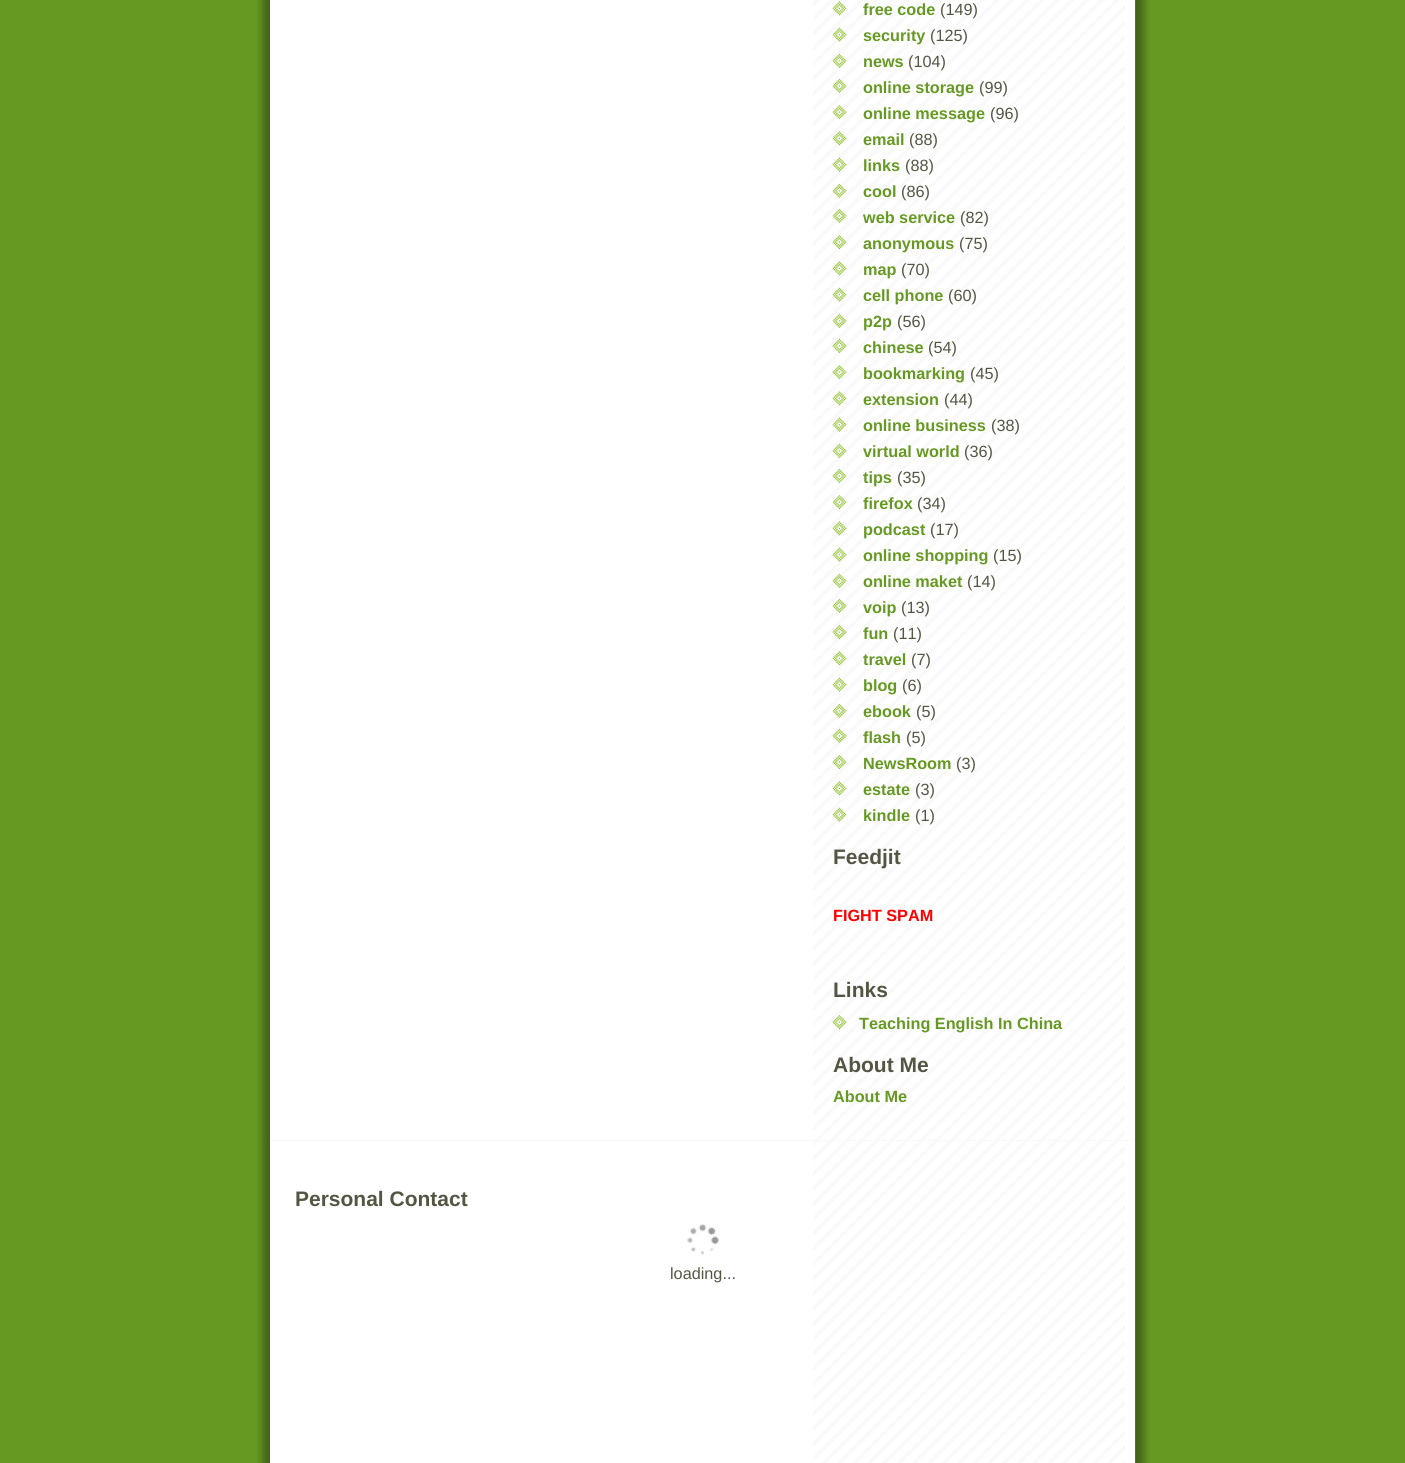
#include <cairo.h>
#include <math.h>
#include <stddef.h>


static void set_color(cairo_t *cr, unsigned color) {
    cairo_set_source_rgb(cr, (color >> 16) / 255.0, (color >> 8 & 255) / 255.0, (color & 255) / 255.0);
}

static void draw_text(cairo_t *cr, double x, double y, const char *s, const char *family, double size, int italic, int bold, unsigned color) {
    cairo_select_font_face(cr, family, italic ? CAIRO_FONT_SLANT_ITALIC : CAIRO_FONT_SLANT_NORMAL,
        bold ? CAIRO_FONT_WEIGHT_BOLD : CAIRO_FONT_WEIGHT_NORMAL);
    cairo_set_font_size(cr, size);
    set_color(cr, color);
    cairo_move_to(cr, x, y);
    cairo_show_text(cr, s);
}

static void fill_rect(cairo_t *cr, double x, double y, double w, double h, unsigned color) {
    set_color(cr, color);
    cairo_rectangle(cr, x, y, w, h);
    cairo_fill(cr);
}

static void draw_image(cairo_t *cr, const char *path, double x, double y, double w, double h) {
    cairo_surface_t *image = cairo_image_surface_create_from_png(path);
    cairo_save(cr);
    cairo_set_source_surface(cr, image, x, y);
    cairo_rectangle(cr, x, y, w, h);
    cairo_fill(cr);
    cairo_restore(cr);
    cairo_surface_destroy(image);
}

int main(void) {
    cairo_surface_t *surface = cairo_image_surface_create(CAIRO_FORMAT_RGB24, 1405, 1463);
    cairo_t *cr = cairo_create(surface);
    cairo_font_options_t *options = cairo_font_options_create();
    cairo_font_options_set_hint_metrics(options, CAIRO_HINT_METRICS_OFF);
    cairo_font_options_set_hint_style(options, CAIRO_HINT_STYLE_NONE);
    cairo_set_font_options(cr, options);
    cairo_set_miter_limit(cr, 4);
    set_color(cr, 0x669922);
    cairo_paint(cr);
    draw_image(cr, "assets/img1.png", 257, 0, 893, 1463);
    fill_rect(cr, 270, 0, 865, 1463, 0xFFFFFF);
    draw_image(cr, "assets/img2.png", 813, 0, 312, 1463);
    draw_image(cr, "assets/img3.png", 832, 1, 15, 15);
    draw_text(cr, 863, 15, "free code", "Liberation Sans", 16.25, 0, 1, 0x669922);
    draw_text(cr, 940, 15, "(149)", "Liberation Sans", 16.25, 0, 0, 0x555544);
    draw_image(cr, "assets/img4.png", 832, 27, 15, 15);
    draw_text(cr, 863, 41, "security", "Liberation Sans", 16.25, 0, 1, 0x669922);
    draw_text(cr, 930, 41, "(125)", "Liberation Sans", 16.25, 0, 0, 0x555544);
    draw_image(cr, "assets/img5.png", 832, 53, 15, 15);
    draw_text(cr, 863, 67, "news", "Liberation Sans", 16.25, 0, 1, 0x669922);
    draw_text(cr, 908, 67, "(104)", "Liberation Sans", 16.25, 0, 0, 0x555544);
    draw_image(cr, "assets/img6.png", 832, 78, 15, 15);
    draw_text(cr, 863, 93, "online storage", "Liberation Sans", 16.25, 0, 1, 0x669922);
    draw_text(cr, 979, 93, "(99)", "Liberation Sans", 16.25, 0, 0, 0x555544);
    draw_image(cr, "assets/img7.png", 832, 105, 15, 14);
    draw_text(cr, 863, 119, "online message", "Liberation Sans", 16.25, 0, 1, 0x669922);
    draw_text(cr, 990, 119, "(96)", "Liberation Sans", 16.25, 0, 0, 0x555544);
    draw_image(cr, "assets/img8.png", 832, 131, 15, 15);
    draw_text(cr, 863, 145, "email", "Liberation Sans", 16.25, 0, 1, 0x669922);
    draw_text(cr, 909, 145, "(88)", "Liberation Sans", 16.25, 0, 0, 0x555544);
    draw_image(cr, "assets/img9.png", 832, 157, 15, 15);
    draw_text(cr, 863, 171, "links", "Liberation Sans", 16.25, 0, 1, 0x669922);
    draw_text(cr, 905, 171, "(88)", "Liberation Sans", 16.25, 0, 0, 0x555544);
    draw_image(cr, "assets/img6.png", 832, 183, 15, 15);
    draw_text(cr, 863, 197, "cool", "Liberation Sans", 16.25, 0, 1, 0x669922);
    draw_text(cr, 901, 197, "(86)", "Liberation Sans", 16.25, 0, 0, 0x555544);
    draw_image(cr, "assets/img10.png", 832, 208, 15, 15);
    draw_text(cr, 863, 223, "web service", "Liberation Sans", 16.25, 0, 1, 0x669922);
    draw_text(cr, 960, 223, "(82)", "Liberation Sans", 16.25, 0, 0, 0x555544);
    draw_image(cr, "assets/img11.png", 832, 235, 15, 14);
    draw_text(cr, 863, 249, "anonymous", "Liberation Sans", 16.25, 0, 1, 0x669922);
    draw_text(cr, 959, 249, "(75)", "Liberation Sans", 16.25, 0, 0, 0x555544);
    draw_image(cr, "assets/img12.png", 832, 261, 15, 15);
    draw_text(cr, 863, 275, "map", "Liberation Sans", 16.25, 0, 1, 0x669922);
    draw_text(cr, 901, 275, "(70)", "Liberation Sans", 16.25, 0, 0, 0x555544);
    draw_image(cr, "assets/img13.png", 832, 287, 15, 15);
    draw_text(cr, 863, 301, "cell phone", "Liberation Sans", 16.25, 0, 1, 0x669922);
    draw_text(cr, 948, 301, "(60)", "Liberation Sans", 16.25, 0, 0, 0x555544);
    draw_image(cr, "assets/img10.png", 832, 313, 15, 15);
    draw_text(cr, 863, 327, "p2p", "Liberation Sans", 16.25, 0, 1, 0x669922);
    draw_text(cr, 897, 327, "(56)", "Liberation Sans", 16.25, 0, 0, 0x555544);
    draw_image(cr, "assets/img14.png", 832, 338, 15, 15);
    draw_text(cr, 863, 353, "chinese", "Liberation Sans", 16.25, 0, 1, 0x669922);
    draw_text(cr, 928, 353, "(54)", "Liberation Sans", 16.25, 0, 0, 0x555544);
    draw_image(cr, "assets/img15.png", 832, 365, 15, 14);
    draw_text(cr, 863, 379, "bookmarking", "Liberation Sans", 16.25, 0, 1, 0x669922);
    draw_text(cr, 970, 379, "(45)", "Liberation Sans", 16.25, 0, 0, 0x555544);
    draw_image(cr, "assets/img16.png", 832, 391, 15, 15);
    draw_text(cr, 863, 405, "extension", "Liberation Sans", 16.25, 0, 1, 0x669922);
    draw_text(cr, 944, 405, "(44)", "Liberation Sans", 16.25, 0, 0, 0x555544);
    draw_image(cr, "assets/img17.png", 832, 417, 15, 15);
    draw_text(cr, 863, 431, "online business", "Liberation Sans", 16.25, 0, 1, 0x669922);
    draw_text(cr, 991, 431, "(38)", "Liberation Sans", 16.25, 0, 0, 0x555544);
    draw_image(cr, "assets/img14.png", 832, 443, 15, 15);
    draw_text(cr, 863, 457, "virtual world", "Liberation Sans", 16.25, 0, 1, 0x669922);
    draw_text(cr, 964, 457, "(36)", "Liberation Sans", 16.25, 0, 0, 0x555544);
    draw_image(cr, "assets/img18.png", 832, 468, 15, 15);
    draw_text(cr, 863, 483, "tips", "Liberation Sans", 16.25, 0, 1, 0x669922);
    draw_text(cr, 897, 483, "(35)", "Liberation Sans", 16.25, 0, 0, 0x555544);
    draw_image(cr, "assets/img7.png", 832, 495, 15, 14);
    draw_text(cr, 863, 509, "firefox", "Liberation Sans", 16.25, 0, 1, 0x669922);
    draw_text(cr, 917, 509, "(34)", "Liberation Sans", 16.25, 0, 0, 0x555544);
    draw_image(cr, "assets/img8.png", 832, 521, 15, 15);
    draw_text(cr, 863, 535, "podcast", "Liberation Sans", 16.25, 0, 1, 0x669922);
    draw_text(cr, 930, 535, "(17)", "Liberation Sans", 16.25, 0, 0, 0x555544);
    draw_image(cr, "assets/img9.png", 832, 547, 15, 15);
    draw_text(cr, 863, 561, "online shopping", "Liberation Sans", 16.25, 0, 1, 0x669922);
    draw_text(cr, 993, 561, "(15)", "Liberation Sans", 16.25, 0, 0, 0x555544);
    draw_image(cr, "assets/img6.png", 832, 573, 15, 15);
    draw_text(cr, 863, 587, "online maket", "Liberation Sans", 16.25, 0, 1, 0x669922);
    draw_text(cr, 967, 587, "(14)", "Liberation Sans", 16.25, 0, 0, 0x555544);
    draw_image(cr, "assets/img19.png", 832, 598, 15, 15);
    draw_text(cr, 863, 613, "voip", "Liberation Sans", 16.25, 0, 1, 0x669922);
    draw_text(cr, 901, 613, "(13)", "Liberation Sans", 16.25, 0, 0, 0x555544);
    draw_image(cr, "assets/img20.png", 832, 625, 15, 14);
    draw_text(cr, 863, 639, "fun", "Liberation Sans", 16.25, 0, 1, 0x669922);
    draw_text(cr, 893, 639, "(11)", "Liberation Sans", 16.25, 0, 0, 0x555544);
    draw_image(cr, "assets/img21.png", 832, 651, 15, 15);
    draw_text(cr, 863, 665, "travel", "Liberation Sans", 16.25, 0, 1, 0x669922);
    draw_text(cr, 911, 665, "(7)", "Liberation Sans", 16.25, 0, 0, 0x555544);
    draw_image(cr, "assets/img22.png", 832, 677, 15, 15);
    draw_text(cr, 863, 691, "blog", "Liberation Sans", 16.25, 0, 1, 0x669922);
    draw_text(cr, 902, 691, "(6)", "Liberation Sans", 16.25, 0, 0, 0x555544);
    draw_image(cr, "assets/img19.png", 832, 703, 15, 15);
    draw_text(cr, 863, 717, "ebook", "Liberation Sans", 16.25, 0, 1, 0x669922);
    draw_text(cr, 916, 717, "(5)", "Liberation Sans", 16.25, 0, 0, 0x555544);
    draw_image(cr, "assets/img23.png", 832, 728, 15, 15);
    draw_text(cr, 863, 743, "flash", "Liberation Sans", 16.25, 0, 1, 0x669922);
    draw_text(cr, 906, 743, "(5)", "Liberation Sans", 16.25, 0, 0, 0x555544);
    draw_image(cr, "assets/img24.png", 832, 755, 15, 14);
    draw_text(cr, 863, 769, "NewsRoom", "Liberation Sans", 16.25, 0, 1, 0x669922);
    draw_text(cr, 956, 769, "(3)", "Liberation Sans", 16.25, 0, 0, 0x555544);
    draw_image(cr, "assets/img3.png", 832, 781, 15, 15);
    draw_text(cr, 863, 795, "estate", "Liberation Sans", 16.25, 0, 1, 0x669922);
    draw_text(cr, 915, 795, "(3)", "Liberation Sans", 16.25, 0, 0, 0x555544);
    draw_image(cr, "assets/img4.png", 832, 807, 15, 15);
    draw_text(cr, 863, 821, "kindle", "Liberation Sans", 16.25, 0, 1, 0x669922);
    draw_text(cr, 915, 821, "(1)", "Liberation Sans", 16.25, 0, 0, 0x555544);
    draw_text(cr, 833, 864, "Feedjit", "Liberation Sans", 21, 0, 1, 0x555544);
    draw_text(cr, 833, 921, "FIGHT SPAM", "Liberation Sans", 16.25, 0, 1, 0xFF0000);
    draw_text(cr, 833, 997, "Links", "Liberation Sans", 21, 0, 1, 0x555544);
    draw_image(cr, "assets/img20.png", 832, 1015, 15, 14);
    draw_text(cr, 859, 1029, "Teaching English In China", "Liberation Sans", 16.25, 0, 1, 0x669922);
    draw_text(cr, 833, 1072, "About Me", "Liberation Sans", 21, 0, 1, 0x555544);
    draw_text(cr, 833, 1102, "About Me", "Liberation Sans", 16.25, 0, 1, 0x669922);
    fill_rect(cr, 270, 1140, 865, 1, 0xF9F9F9);
    draw_text(cr, 295, 1206, "Personal Contact", "Liberation Sans", 21, 0, 1, 0x555544);
    draw_image(cr, "assets/img25.png", 687, 1224, 32, 31);
    draw_text(cr, 670, 1279, "loading...", "Liberation Sans", 16.25, 0, 0, 0x555544);
    cairo_surface_write_to_png(surface, "output.png");
    cairo_font_options_destroy(options);
    cairo_destroy(cr);
    cairo_surface_destroy(surface);
    return 0;
}
